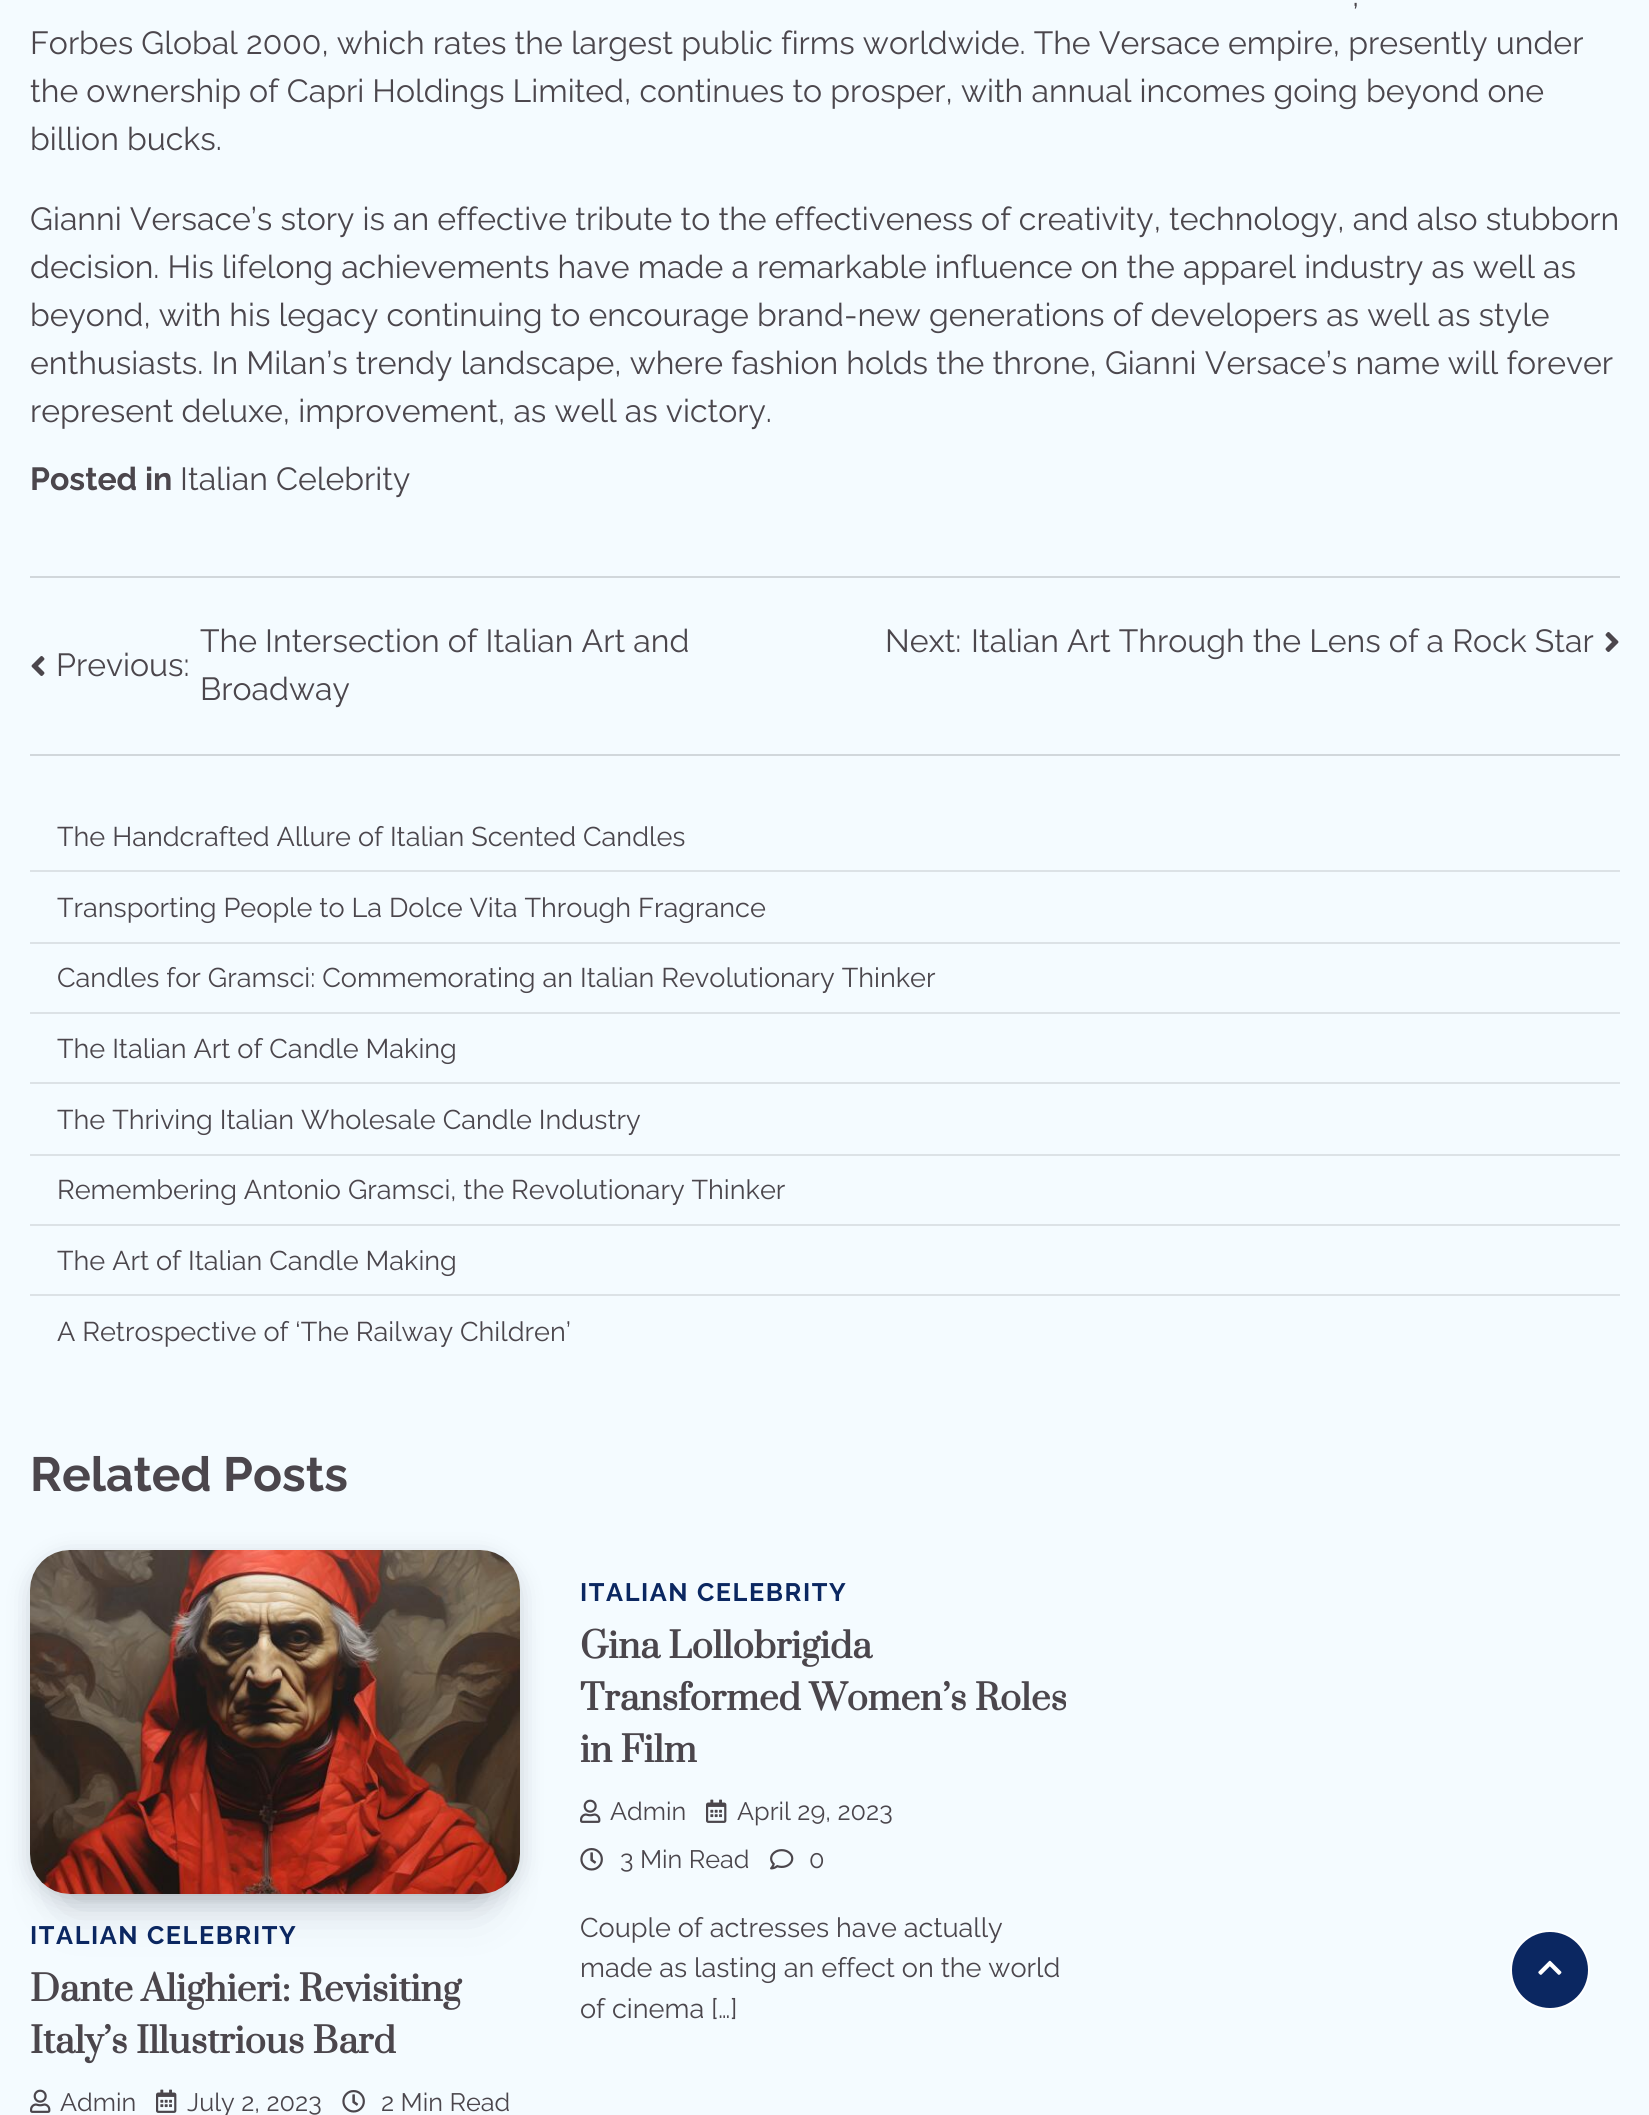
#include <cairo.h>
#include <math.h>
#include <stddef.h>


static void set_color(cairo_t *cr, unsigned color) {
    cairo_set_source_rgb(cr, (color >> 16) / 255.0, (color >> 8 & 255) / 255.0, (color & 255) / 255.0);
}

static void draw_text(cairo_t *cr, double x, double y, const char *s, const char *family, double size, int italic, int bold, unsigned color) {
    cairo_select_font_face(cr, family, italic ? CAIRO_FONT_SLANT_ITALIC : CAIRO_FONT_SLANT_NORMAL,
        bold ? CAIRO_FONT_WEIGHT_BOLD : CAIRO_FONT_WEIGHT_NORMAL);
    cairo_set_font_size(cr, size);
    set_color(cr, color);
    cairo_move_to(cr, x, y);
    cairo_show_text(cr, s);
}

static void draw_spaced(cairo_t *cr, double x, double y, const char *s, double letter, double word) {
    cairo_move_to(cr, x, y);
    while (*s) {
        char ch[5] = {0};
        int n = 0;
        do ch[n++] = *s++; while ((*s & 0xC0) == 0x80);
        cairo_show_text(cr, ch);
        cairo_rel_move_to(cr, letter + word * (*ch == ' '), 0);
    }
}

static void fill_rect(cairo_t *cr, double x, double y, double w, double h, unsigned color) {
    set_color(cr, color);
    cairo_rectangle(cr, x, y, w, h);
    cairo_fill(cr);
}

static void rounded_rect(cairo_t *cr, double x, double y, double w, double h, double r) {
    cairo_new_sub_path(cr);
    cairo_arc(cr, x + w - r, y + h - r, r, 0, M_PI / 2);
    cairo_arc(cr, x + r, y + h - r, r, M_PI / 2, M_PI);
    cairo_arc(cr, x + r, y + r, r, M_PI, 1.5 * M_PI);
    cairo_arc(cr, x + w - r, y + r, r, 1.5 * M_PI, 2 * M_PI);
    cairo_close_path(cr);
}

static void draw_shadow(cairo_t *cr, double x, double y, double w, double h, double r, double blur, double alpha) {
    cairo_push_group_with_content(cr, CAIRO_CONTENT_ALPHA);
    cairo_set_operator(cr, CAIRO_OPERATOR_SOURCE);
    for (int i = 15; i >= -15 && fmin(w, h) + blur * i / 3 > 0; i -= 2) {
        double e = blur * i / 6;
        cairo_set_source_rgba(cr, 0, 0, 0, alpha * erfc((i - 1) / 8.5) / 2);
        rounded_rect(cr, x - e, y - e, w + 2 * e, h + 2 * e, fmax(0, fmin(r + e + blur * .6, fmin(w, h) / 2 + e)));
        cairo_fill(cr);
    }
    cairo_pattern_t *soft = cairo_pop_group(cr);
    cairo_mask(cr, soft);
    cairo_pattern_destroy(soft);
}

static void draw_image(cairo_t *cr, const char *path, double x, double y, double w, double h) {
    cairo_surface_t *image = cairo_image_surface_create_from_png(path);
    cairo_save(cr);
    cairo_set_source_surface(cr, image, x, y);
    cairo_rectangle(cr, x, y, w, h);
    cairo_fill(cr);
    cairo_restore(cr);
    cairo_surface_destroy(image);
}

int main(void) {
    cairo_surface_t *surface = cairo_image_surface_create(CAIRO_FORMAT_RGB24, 1649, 2115);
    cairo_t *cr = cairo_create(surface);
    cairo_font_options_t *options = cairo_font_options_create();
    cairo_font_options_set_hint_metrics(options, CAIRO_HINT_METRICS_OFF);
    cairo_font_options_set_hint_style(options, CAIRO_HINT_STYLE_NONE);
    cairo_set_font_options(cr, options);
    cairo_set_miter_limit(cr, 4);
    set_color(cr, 0xF4FBFF);
    cairo_paint(cr);
    draw_text(cr, 1352, 6, ",", "Raleway", 32, 0, 0, 0x4B464C);
    draw_text(cr, 30, 54, "Forbes Global 2000, which rates the largest public firms worldwide. The Versace empire, presently under", "Raleway", 32, 0, 0, 0x4B464C);
    draw_text(cr, 30, 102, "the ownership of Capri Holdings Limited, continues to prosper, with annual incomes going beyond one", "Raleway", 32, 0, 0, 0x4B464C);
    draw_text(cr, 30, 150, "billion bucks.", "Raleway", 32, 0, 0, 0x4B464C);
    draw_text(cr, 30, 230, "Gianni Versace’s story is an effective tribute to the effectiveness of creativity, technology, and also stubborn", "Raleway", 32, 0, 0, 0x4B464C);
    draw_text(cr, 30, 278, "decision. His lifelong achievements have made a remarkable influence on the apparel industry as well as", "Raleway", 32, 0, 0, 0x4B464C);
    draw_text(cr, 30, 326, "beyond, with his legacy continuing to encourage brand-new generations of developers as well as style", "Raleway", 32, 0, 0, 0x4B464C);
    draw_text(cr, 30, 374, "enthusiasts. In Milan’s trendy landscape, where fashion holds the throne, Gianni Versace’s name will forever", "Raleway", 32, 0, 0, 0x4B464C);
    draw_text(cr, 30, 422, "represent deluxe, improvement, as well as victory.", "Raleway", 32, 0, 0, 0x4B464C);
    draw_text(cr, 30, 490, "Posted in", "Raleway", 32, 0, 1, 0x4B464C);
    draw_text(cr, 180, 490, "Italian Celebrity", "Raleway", 32, 0, 0, 0x4B464C);
    fill_rect(cr, 30, 576, 1590, 2, 0xD1D7DB);
    fill_rect(cr, 30, 754, 1590, 2, 0xD1D7DB);
    draw_image(cr, "assets/img1.png", 31, 656, 14, 20);
    draw_text(cr, 56, 676, "Previous:", "Raleway", 32, 0, 0, 0x4B464C);
    draw_text(cr, 200, 652, "The Intersection of Italian Art and", "Raleway", 32, 0, 0, 0x4B464C);
    draw_text(cr, 200, 700, "Broadway", "Raleway", 32, 0, 0, 0x4B464C);
    draw_text(cr, 885, 652, "Next:", "Raleway", 32, 0, 0, 0x4B464C);
    draw_text(cr, 971, 652, "Italian Art Through the Lens of a Rock Star", "Raleway", 32, 0, 0, 0x4B464C);
    draw_image(cr, "assets/img2.png", 1605, 632, 14, 20);
    fill_rect(cr, 30, 870, 1590, 2, 0xDCE2E6);
    draw_text(cr, 57, 846, "The Handcrafted Allure of Italian Scented Candles", "Raleway", 27.1, 0, 0, 0x4B464C);
    fill_rect(cr, 30, 942, 1590, 2, 0xDCE2E6);
    draw_text(cr, 57, 917, "Transporting People to La Dolce Vita Through Fragrance", "Raleway", 27.1, 0, 0, 0x4B464C);
    fill_rect(cr, 30, 1012, 1590, 2, 0xDCE2E6);
    draw_text(cr, 57, 987, "Candles for Gramsci: Commemorating an Italian Revolutionary Thinker", "Raleway", 27.1, 0, 0, 0x4B464C);
    fill_rect(cr, 30, 1082, 1590, 2, 0xDCE2E6);
    draw_text(cr, 57, 1058, "The Italian Art of Candle Making", "Raleway", 27.1, 0, 0, 0x4B464C);
    fill_rect(cr, 30, 1154, 1590, 2, 0xDCE2E6);
    draw_text(cr, 57, 1129, "The Thriving Italian Wholesale Candle Industry", "Raleway", 27.1, 0, 0, 0x4B464C);
    fill_rect(cr, 30, 1224, 1590, 2, 0xDCE2E6);
    draw_text(cr, 57, 1199, "Remembering Antonio Gramsci, the Revolutionary Thinker", "Raleway", 27.1, 0, 0, 0x4B464C);
    fill_rect(cr, 30, 1294, 1590, 2, 0xDCE2E6);
    draw_text(cr, 57, 1270, "The Art of Italian Candle Making", "Raleway", 27.1, 0, 0, 0x4B464C);
    draw_text(cr, 57, 1341, "A Retrospective of ‘The Railway Children’", "Raleway", 27.1, 0, 0, 0x4B464C);
    draw_text(cr, 30, 1491, "Related Posts", "Raleway", 48, 0, 1, 0x4B464C);
    set_color(cr, 0x070A19);
    draw_shadow(cr, 70, 1634, 410, 264, 0, 27, 0.2);
    draw_shadow(cr, 32, 1558, 486, 340, 38, 12, 0.2);
    draw_image(cr, "assets/img3.png", 30, 1550, 490, 344);
    cairo_set_font_size(cr, 25.25);
    set_color(cr, 0x0B2761);
    draw_spaced(cr, 30, 1944, "ITALIAN CELEBRITY", 1.6, 0);
    draw_text(cr, 30, 2001, "Dante Alighieri: Revisiting", "Prata", 34.75, 0, 1, 0x4B464C);
    draw_text(cr, 30, 2053, "Italy’s Illustrious Bard", "Prata", 34.75, 0, 1, 0x4B464C);
    draw_image(cr, "assets/img4.png", 30, 2089, 21, 24);
    draw_text(cr, 60, 2111, "Admin", "Raleway", 25.25, 0, 0, 0x4B464C);
    draw_image(cr, "assets/img5.png", 156, 2089, 21, 24);
    draw_text(cr, 187, 2111, "July 2, 2023", "Raleway", 25.25, 0, 0, 0x4B464C);
    draw_image(cr, "assets/img6.png", 342, 2090, 23, 23);
    draw_text(cr, 381, 2111, "2 Min Read", "Raleway", 25.25, 0, 0, 0x4B464C);
    cairo_select_font_face(cr, "Raleway", CAIRO_FONT_SLANT_NORMAL, CAIRO_FONT_WEIGHT_BOLD);
    set_color(cr, 0x0B2761);
    draw_spaced(cr, 580, 1601, "ITALIAN CELEBRITY", 1.6, 0);
    draw_text(cr, 580, 1658, "Gina Lollobrigida", "Prata", 34.75, 0, 1, 0x4B464C);
    draw_text(cr, 580, 1710, "Transformed Women’s Roles", "Prata", 34.75, 0, 1, 0x4B464C);
    draw_text(cr, 580, 1762, "in Film", "Prata", 34.75, 0, 1, 0x4B464C);
    draw_image(cr, "assets/img4.png", 580, 1799, 21, 24);
    draw_text(cr, 610, 1820, "Admin", "Raleway", 25.25, 0, 0, 0x4B464C);
    draw_image(cr, "assets/img5.png", 706, 1799, 21, 24);
    draw_text(cr, 737, 1820, "April 29, 2023", "Raleway", 25.25, 0, 0, 0x4B464C);
    draw_image(cr, "assets/img6.png", 580, 1848, 23, 23);
    draw_text(cr, 620, 1868, "3 Min Read", "Raleway", 25.25, 0, 0, 0x4B464C);
    draw_image(cr, "assets/img7.png", 770, 1849, 24, 21);
    draw_text(cr, 809, 1868, "0", "Raleway", 25.25, 0, 0, 0x4B464C);
    draw_text(cr, 580, 1937, "Couple of actresses have actually", "Raleway", 27.1, 0, 0, 0x4B464C);
    draw_text(cr, 580, 1977, "made as lasting an effect on the world", "Raleway", 27.1, 0, 0, 0x4B464C);
    draw_text(cr, 580, 2018, "of cinema […]", "Raleway", 27.1, 0, 0, 0x4B464C);
    set_color(cr, 0x0B2761);
    cairo_new_path(cr);
    cairo_arc(cr, 1550, 1970, 39, 0, 2 * M_PI);
    cairo_fill_preserve(cr);
    set_color(cr, 0xFFFFFF);
    cairo_stroke(cr);
    draw_image(cr, "assets/img8.png", 1538, 1960, 24, 15);
    cairo_surface_write_to_png(surface, "output.png");
    cairo_font_options_destroy(options);
    cairo_destroy(cr);
    cairo_surface_destroy(surface);
    return 0;
}
